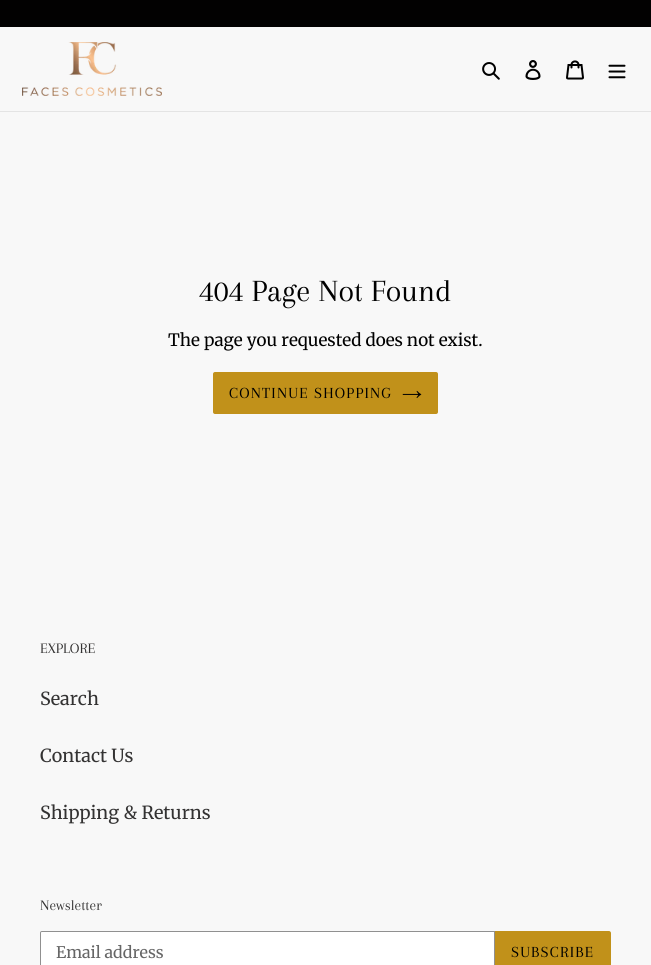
#include <cairo.h>
#include <math.h>
#include <stddef.h>


static void set_color(cairo_t *cr, unsigned color) {
    cairo_set_source_rgb(cr, (color >> 16) / 255.0, (color >> 8 & 255) / 255.0, (color & 255) / 255.0);
}

static void draw_text(cairo_t *cr, double x, double y, const char *s, const char *family, double size, int italic, int bold, unsigned color) {
    cairo_select_font_face(cr, family, italic ? CAIRO_FONT_SLANT_ITALIC : CAIRO_FONT_SLANT_NORMAL,
        bold ? CAIRO_FONT_WEIGHT_BOLD : CAIRO_FONT_WEIGHT_NORMAL);
    cairo_set_font_size(cr, size);
    set_color(cr, color);
    cairo_move_to(cr, x, y);
    cairo_show_text(cr, s);
}

static void draw_spaced(cairo_t *cr, double x, double y, const char *s, double letter, double word) {
    cairo_move_to(cr, x, y);
    while (*s) {
        char ch[5] = {0};
        int n = 0;
        do ch[n++] = *s++; while ((*s & 0xC0) == 0x80);
        cairo_show_text(cr, ch);
        cairo_rel_move_to(cr, letter + word * (*ch == ' '), 0);
    }
}

static void fill_rect(cairo_t *cr, double x, double y, double w, double h, unsigned color) {
    set_color(cr, color);
    cairo_rectangle(cr, x, y, w, h);
    cairo_fill(cr);
}

static void rounded_rect(cairo_t *cr, double x, double y, double w, double h, double r) {
    cairo_new_sub_path(cr);
    cairo_arc(cr, x + w - r, y + h - r, r, 0, M_PI / 2);
    cairo_arc(cr, x + r, y + h - r, r, M_PI / 2, M_PI);
    cairo_arc(cr, x + r, y + r, r, M_PI, 1.5 * M_PI);
    cairo_arc(cr, x + w - r, y + r, r, 1.5 * M_PI, 2 * M_PI);
    cairo_close_path(cr);
}

static void draw_image(cairo_t *cr, const char *path, double x, double y, double w, double h) {
    cairo_surface_t *image = cairo_image_surface_create_from_png(path);
    cairo_save(cr);
    cairo_set_source_surface(cr, image, x, y);
    cairo_rectangle(cr, x, y, w, h);
    cairo_fill(cr);
    cairo_restore(cr);
    cairo_surface_destroy(image);
}

int main(void) {
    cairo_surface_t *surface = cairo_image_surface_create(CAIRO_FORMAT_RGB24, 651, 965);
    cairo_t *cr = cairo_create(surface);
    cairo_font_options_t *options = cairo_font_options_create();
    cairo_font_options_set_hint_metrics(options, CAIRO_HINT_METRICS_OFF);
    cairo_font_options_set_hint_style(options, CAIRO_HINT_STYLE_NONE);
    cairo_set_font_options(cr, options);
    cairo_set_miter_limit(cr, 4);
    set_color(cr, 0xF8F8F8);
    cairo_paint(cr);
    fill_rect(cr, 0, 0, 651, 27, 0x020101);
    fill_rect(cr, 0, 111, 651, 1, 0xE4E4E4);
    draw_image(cr, "assets/img1.png", 22, 42, 140, 54);
    draw_image(cr, "assets/img2.png", 482, 62, 18, 18);
    draw_image(cr, "assets/img3.png", 525, 60, 16, 20);
    draw_image(cr, "assets/img4.png", 566, 60, 18, 20);
    draw_image(cr, "assets/img5.png", 608, 64, 18, 15);
    draw_text(cr, 199, 301, "404 Page Not Found", "Arapey", 32, 0, 0, 0x000000);
    draw_text(cr, 168, 346, "The page you requested does not exist.", "Merriweather", 17, 0, 0, 0x000000);
    set_color(cr, 0xC1911A);
    rounded_rect(cr, 213, 372, 225, 42, 2);
    cairo_fill(cr);
    cairo_select_font_face(cr, "Arapey", CAIRO_FONT_SLANT_NORMAL, CAIRO_FONT_WEIGHT_NORMAL);
    cairo_set_font_size(cr, 16);
    set_color(cr, 0x000000);
    draw_spaced(cr, 229, 398, "CONTINUE SHOPPING", 1.25, 0);
    draw_image(cr, "assets/img6.png", 402, 390, 20, 8);
    draw_text(cr, 40, 653, "EXPLORE", "Arapey", 15, 0, 0, 0x333232);
    draw_text(cr, 40, 705, "Search", "Merriweather", 18, 0, 0, 0x333232);
    draw_text(cr, 40, 762, "Contact Us", "Merriweather", 18, 0, 0, 0x333232);
    draw_text(cr, 40, 819, "Shipping & Returns", "Merriweather", 18, 0, 0, 0x333232);
    draw_text(cr, 40, 910, "Newsletter", "Arapey", 15, 0, 0, 0x333232);
    set_color(cr, 0xFFFFFF);
    cairo_new_path(cr);
    cairo_move_to(cr, 42, 931.5);
    cairo_line_to(cr, 494.5, 931.5);
    cairo_line_to(cr, 494.5, 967.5);
    cairo_line_to(cr, 42, 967.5);
    cairo_curve_to(cr, 41, 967.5, 40.5, 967, 40.5, 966);
    cairo_line_to(cr, 40.5, 933);
    cairo_curve_to(cr, 40.5, 932, 41, 931.5, 42, 931.5);
    cairo_close_path(cr);
    cairo_fill_preserve(cr);
    set_color(cr, 0x909090);
    cairo_set_line_width(cr, 1);
    cairo_stroke(cr);
    draw_text(cr, 56, 958, "Email address", "Merriweather", 16, 0, 0, 0x666666);
    set_color(cr, 0xC1911A);
    cairo_new_path(cr);
    cairo_move_to(cr, 495, 931);
    cairo_line_to(cr, 609, 931);
    cairo_curve_to(cr, 610, 931, 611, 932, 611, 933);
    cairo_line_to(cr, 611, 965);
    cairo_curve_to(cr, 611, 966, 610, 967, 609, 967);
    cairo_line_to(cr, 495, 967);
    cairo_close_path(cr);
    cairo_fill(cr);
    cairo_select_font_face(cr, "Arapey", CAIRO_FONT_SLANT_NORMAL, CAIRO_FONT_WEIGHT_NORMAL);
    set_color(cr, 0x000000);
    draw_spaced(cr, 511, 957, "SUBSCRIBE", 1.25, 0);
    cairo_surface_write_to_png(surface, "output.png");
    cairo_font_options_destroy(options);
    cairo_destroy(cr);
    cairo_surface_destroy(surface);
    return 0;
}
